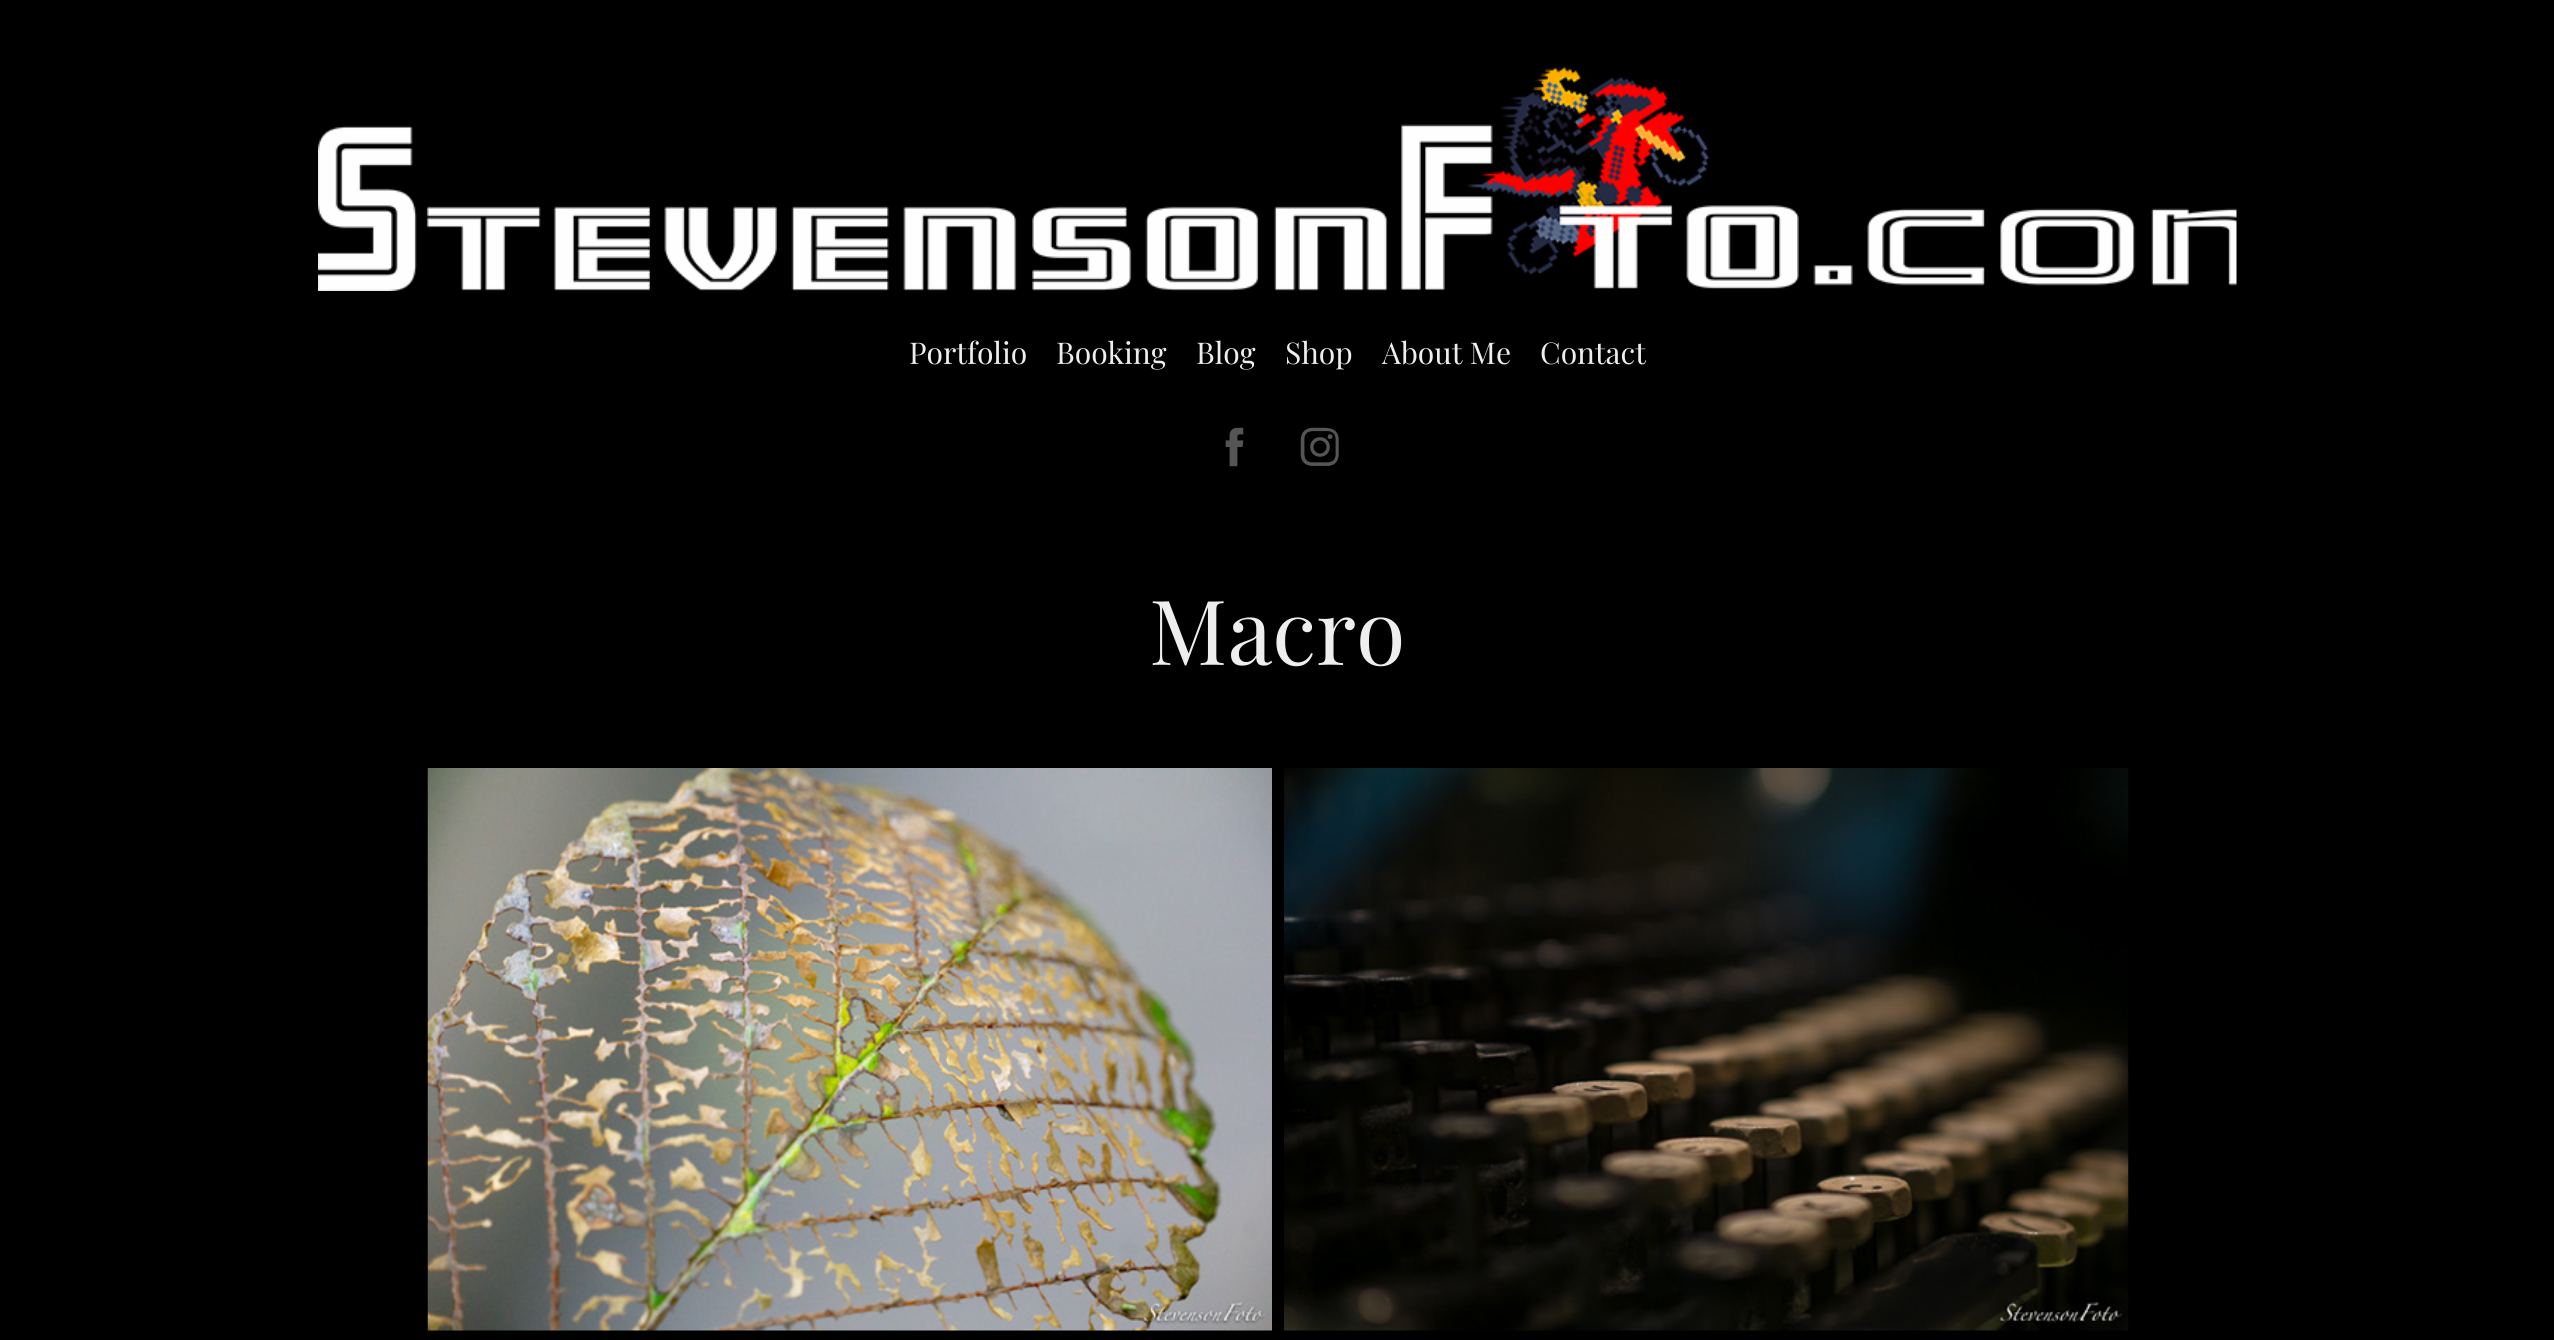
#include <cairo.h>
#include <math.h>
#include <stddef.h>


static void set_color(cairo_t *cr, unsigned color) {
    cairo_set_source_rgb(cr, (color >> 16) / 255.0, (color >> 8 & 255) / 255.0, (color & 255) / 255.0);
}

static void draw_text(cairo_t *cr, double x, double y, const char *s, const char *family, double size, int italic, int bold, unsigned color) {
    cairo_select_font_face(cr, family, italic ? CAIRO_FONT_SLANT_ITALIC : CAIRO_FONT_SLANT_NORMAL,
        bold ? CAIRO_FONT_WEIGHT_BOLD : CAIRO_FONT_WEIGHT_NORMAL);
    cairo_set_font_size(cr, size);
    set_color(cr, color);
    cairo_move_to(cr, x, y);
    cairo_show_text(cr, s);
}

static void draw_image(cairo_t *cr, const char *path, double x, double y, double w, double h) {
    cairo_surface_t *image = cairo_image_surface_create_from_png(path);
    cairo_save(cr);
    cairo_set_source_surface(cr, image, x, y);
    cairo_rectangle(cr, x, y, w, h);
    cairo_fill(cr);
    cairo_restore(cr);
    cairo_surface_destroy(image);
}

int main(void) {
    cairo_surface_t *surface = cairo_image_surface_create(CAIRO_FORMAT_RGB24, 2554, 1340);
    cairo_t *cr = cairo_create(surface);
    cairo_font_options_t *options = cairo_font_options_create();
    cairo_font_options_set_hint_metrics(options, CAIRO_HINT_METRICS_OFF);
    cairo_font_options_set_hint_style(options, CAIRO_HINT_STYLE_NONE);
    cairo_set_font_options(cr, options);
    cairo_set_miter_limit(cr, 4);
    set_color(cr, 0x000000);
    cairo_paint(cr);
    draw_image(cr, "assets/img1.png", 318, 67, 1919, 224);
    draw_text(cr, 909, 364, "Portfolio", "Playfair Display", 30, 0, 0, 0xEEEEEE);
    draw_text(cr, 1056, 364, "Booking", "Playfair Display", 30, 0, 0, 0xEEEEEE);
    draw_text(cr, 1196, 364, "Blog", "Playfair Display", 30, 0, 0, 0xEEEEEE);
    draw_text(cr, 1285, 364, "Shop", "Playfair Display", 30, 0, 0, 0xEEEEEE);
    draw_text(cr, 1382, 364, "About Me", "Playfair Display", 30, 0, 0, 0xEEEEEE);
    draw_text(cr, 1540, 364, "Contact", "Playfair Display", 30, 0, 0, 0xEEEEEE);
    draw_image(cr, "assets/img2.png", 1225, 427, 19, 40);
    draw_image(cr, "assets/img3.png", 1300, 427, 39, 39);
    draw_text(cr, 1149, 665, "Macro", "Playfair Display", 90, 0, 0, 0xEEEEEE);
    draw_image(cr, "assets/img4.png", 427, 768, 845, 563);
    draw_image(cr, "assets/img5.png", 1284, 768, 845, 563);
    cairo_surface_write_to_png(surface, "output.png");
    cairo_font_options_destroy(options);
    cairo_destroy(cr);
    cairo_surface_destroy(surface);
    return 0;
}
